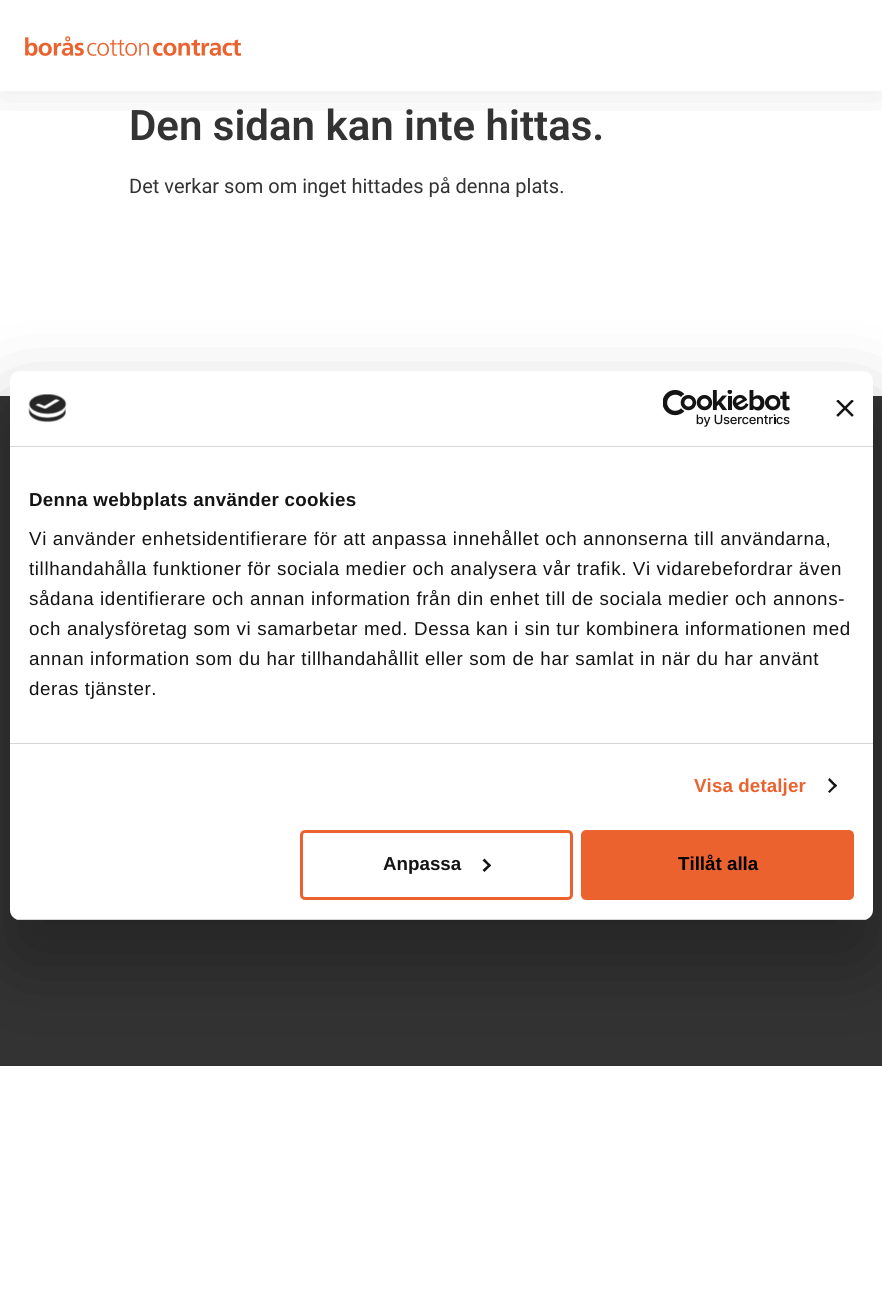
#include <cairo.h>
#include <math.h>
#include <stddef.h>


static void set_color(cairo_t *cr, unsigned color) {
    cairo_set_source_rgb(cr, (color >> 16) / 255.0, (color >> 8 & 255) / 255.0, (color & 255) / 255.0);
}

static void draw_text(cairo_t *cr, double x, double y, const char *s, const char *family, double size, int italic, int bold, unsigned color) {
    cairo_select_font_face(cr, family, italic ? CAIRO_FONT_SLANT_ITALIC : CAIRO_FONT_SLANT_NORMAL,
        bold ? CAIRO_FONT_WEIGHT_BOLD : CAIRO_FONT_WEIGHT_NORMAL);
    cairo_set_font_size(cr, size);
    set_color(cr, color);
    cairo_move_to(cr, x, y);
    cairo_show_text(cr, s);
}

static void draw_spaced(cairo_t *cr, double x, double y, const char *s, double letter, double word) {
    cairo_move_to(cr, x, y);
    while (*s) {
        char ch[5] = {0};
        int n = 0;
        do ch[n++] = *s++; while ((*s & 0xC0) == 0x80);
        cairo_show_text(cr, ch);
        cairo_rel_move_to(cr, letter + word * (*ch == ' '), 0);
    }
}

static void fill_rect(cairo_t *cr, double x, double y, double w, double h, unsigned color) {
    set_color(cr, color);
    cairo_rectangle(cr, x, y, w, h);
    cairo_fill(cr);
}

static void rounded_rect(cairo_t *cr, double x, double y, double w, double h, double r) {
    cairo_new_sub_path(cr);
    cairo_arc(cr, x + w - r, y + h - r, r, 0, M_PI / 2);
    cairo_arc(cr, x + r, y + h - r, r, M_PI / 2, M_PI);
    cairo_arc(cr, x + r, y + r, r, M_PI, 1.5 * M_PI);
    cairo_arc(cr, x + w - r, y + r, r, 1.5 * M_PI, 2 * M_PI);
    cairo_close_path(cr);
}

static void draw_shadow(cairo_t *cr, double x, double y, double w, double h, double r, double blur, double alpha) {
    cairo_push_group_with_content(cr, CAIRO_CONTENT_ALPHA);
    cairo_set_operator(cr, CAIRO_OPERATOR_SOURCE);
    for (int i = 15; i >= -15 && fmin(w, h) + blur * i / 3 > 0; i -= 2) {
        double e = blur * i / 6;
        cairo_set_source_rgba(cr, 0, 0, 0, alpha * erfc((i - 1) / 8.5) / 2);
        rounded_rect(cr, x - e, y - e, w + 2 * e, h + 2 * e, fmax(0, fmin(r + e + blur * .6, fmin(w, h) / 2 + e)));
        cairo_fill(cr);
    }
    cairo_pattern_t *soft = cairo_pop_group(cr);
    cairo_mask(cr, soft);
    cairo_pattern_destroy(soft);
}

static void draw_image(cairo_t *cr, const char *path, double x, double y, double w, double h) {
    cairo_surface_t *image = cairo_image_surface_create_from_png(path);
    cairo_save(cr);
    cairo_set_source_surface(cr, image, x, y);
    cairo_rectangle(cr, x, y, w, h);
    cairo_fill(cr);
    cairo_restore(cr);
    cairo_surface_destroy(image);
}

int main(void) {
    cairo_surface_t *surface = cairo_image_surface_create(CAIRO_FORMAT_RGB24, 882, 1289);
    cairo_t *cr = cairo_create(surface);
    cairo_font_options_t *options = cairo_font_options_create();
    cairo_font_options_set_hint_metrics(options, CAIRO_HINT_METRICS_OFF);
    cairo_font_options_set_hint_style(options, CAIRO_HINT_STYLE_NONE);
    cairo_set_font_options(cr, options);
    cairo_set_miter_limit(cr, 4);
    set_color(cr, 0xFFFFFF);
    cairo_paint(cr);
    cairo_save(cr);
    cairo_rectangle(cr, 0, 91, 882, 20);
    cairo_clip(cr);
    set_color(cr, 0x000000);
    draw_shadow(cr, 0, 0, 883, 91, 0, 24, 0.1);
    cairo_restore(cr);
    draw_image(cr, "assets/img1.png", 25, 36, 216, 20);
    draw_text(cr, 129, 140, "Den sidan kan inte hittas.", "Roboto SemiBold", 42, 0, 0, 0x333333);
    draw_text(cr, 129, 193, "Det verkar som om inget hittades på denna plats.", "Roboto", 20, 0, 0, 0x333333);
    fill_rect(cr, 0, 396, 882, 670, 0x333333);
    set_color(cr, 0x000000);
    draw_shadow(cr, 10, 411, 863, 549, 10, 42.5, 0.3);
    set_color(cr, 0xFFFFFF);
    rounded_rect(cr, 10, 371, 863, 549, 10);
    cairo_fill(cr);
    fill_rect(cr, 10, 446, 863, 1, 0xD6D6D6);
    draw_image(cr, "assets/img2.png", 28, 394, 39, 29);
    draw_image(cr, "assets/img3.png", 663, 390, 127, 37);
    draw_image(cr, "assets/img4.png", 836, 400, 18, 17);
    fill_rect(cr, 10, 743, 863, 1, 0xD6D6D6);
    cairo_select_font_face(cr, "Liberation Sans", CAIRO_FONT_SLANT_NORMAL, CAIRO_FONT_WEIGHT_BOLD);
    cairo_set_font_size(cr, 18.75);
    set_color(cr, 0x141414);
    draw_spaced(cr, 29, 506, "Denna webbplats använder cookies", 0.3, 0);
    cairo_select_font_face(cr, "Liberation Sans", CAIRO_FONT_SLANT_NORMAL, CAIRO_FONT_WEIGHT_NORMAL);
    draw_spaced(cr, 29, 545, "Vi använder enhetsidentifierare för att anpassa innehållet och annonserna till användarna,", 0.62, 0);
    draw_spaced(cr, 29, 575, "tillhandahålla funktioner för sociala medier och analysera vår trafik. Vi vidarebefordrar även", 0.62, 0);
    draw_spaced(cr, 29, 605, "sådana identifierare och annan information från din enhet till de sociala medier och annons-", 0.62, 0);
    draw_spaced(cr, 29, 635, "och analysföretag som vi samarbetar med. Dessa kan i sin tur kombinera informationen med", 0.62, 0);
    draw_spaced(cr, 29, 665, "annan information som du har tillhandahållit eller som de har samlat in när du har använt", 0.62, 0);
    draw_spaced(cr, 29, 695, "deras tjänster.", 0.62, 0);
    cairo_select_font_face(cr, "Liberation Sans", CAIRO_FONT_SLANT_NORMAL, CAIRO_FONT_WEIGHT_BOLD);
    set_color(cr, 0xEB622F);
    draw_spaced(cr, 694, 792, "Visa detaljer", 0.1, 0);
    set_color(cr, 0x141414);
    cairo_new_path(cr);
    cairo_move_to(cr, 829.5, 778);
    cairo_line_to(cr, 837, 785.5);
    cairo_line_to(cr, 835.5, 787.5);
    cairo_line_to(cr, 828, 780);
    cairo_close_path(cr);
    cairo_fill(cr);
    cairo_new_path(cr);
    cairo_move_to(cr, 835.5, 784);
    cairo_line_to(cr, 837, 785.5);
    cairo_line_to(cr, 829.5, 793);
    cairo_line_to(cr, 828, 791.5);
    cairo_close_path(cr);
    cairo_fill(cr);
    cairo_save(cr);
    rounded_rect(cr, 10, 371, 863, 549, 10);
    cairo_clip(cr);
    fill_rect(cr, 10, 919, 863, 1, 0xD6D6D6);
    cairo_restore(cr);
    rounded_rect(cr, 301.5, 831.5, 270, 67, 3.5);
    set_color(cr, 0xEB622F);
    cairo_set_line_width(cr, 3);
    cairo_stroke(cr);
    draw_text(cr, 383, 870, "Anpassa", "Liberation Sans", 18.75, 0, 1, 0x141414);
    cairo_new_path(cr);
    cairo_move_to(cr, 484.5, 858.5);
    cairo_line_to(cr, 491, 865.5);
    cairo_line_to(cr, 489.5, 867);
    cairo_line_to(cr, 482.5, 860.5);
    cairo_close_path(cr);
    cairo_fill(cr);
    cairo_new_path(cr);
    cairo_move_to(cr, 489.5, 863.5);
    cairo_line_to(cr, 491, 865.5);
    cairo_line_to(cr, 484.5, 872);
    cairo_line_to(cr, 482.5, 870);
    cairo_close_path(cr);
    cairo_fill(cr);
    set_color(cr, 0xEB622F);
    rounded_rect(cr, 582.5, 831.5, 270, 67, 3.5);
    cairo_fill_preserve(cr);
    cairo_stroke(cr);
    draw_text(cr, 678, 870, "Tillåt alla", "Liberation Sans", 18.75, 0, 1, 0x000000);
    cairo_surface_write_to_png(surface, "output.png");
    cairo_font_options_destroy(options);
    cairo_destroy(cr);
    cairo_surface_destroy(surface);
    return 0;
}
